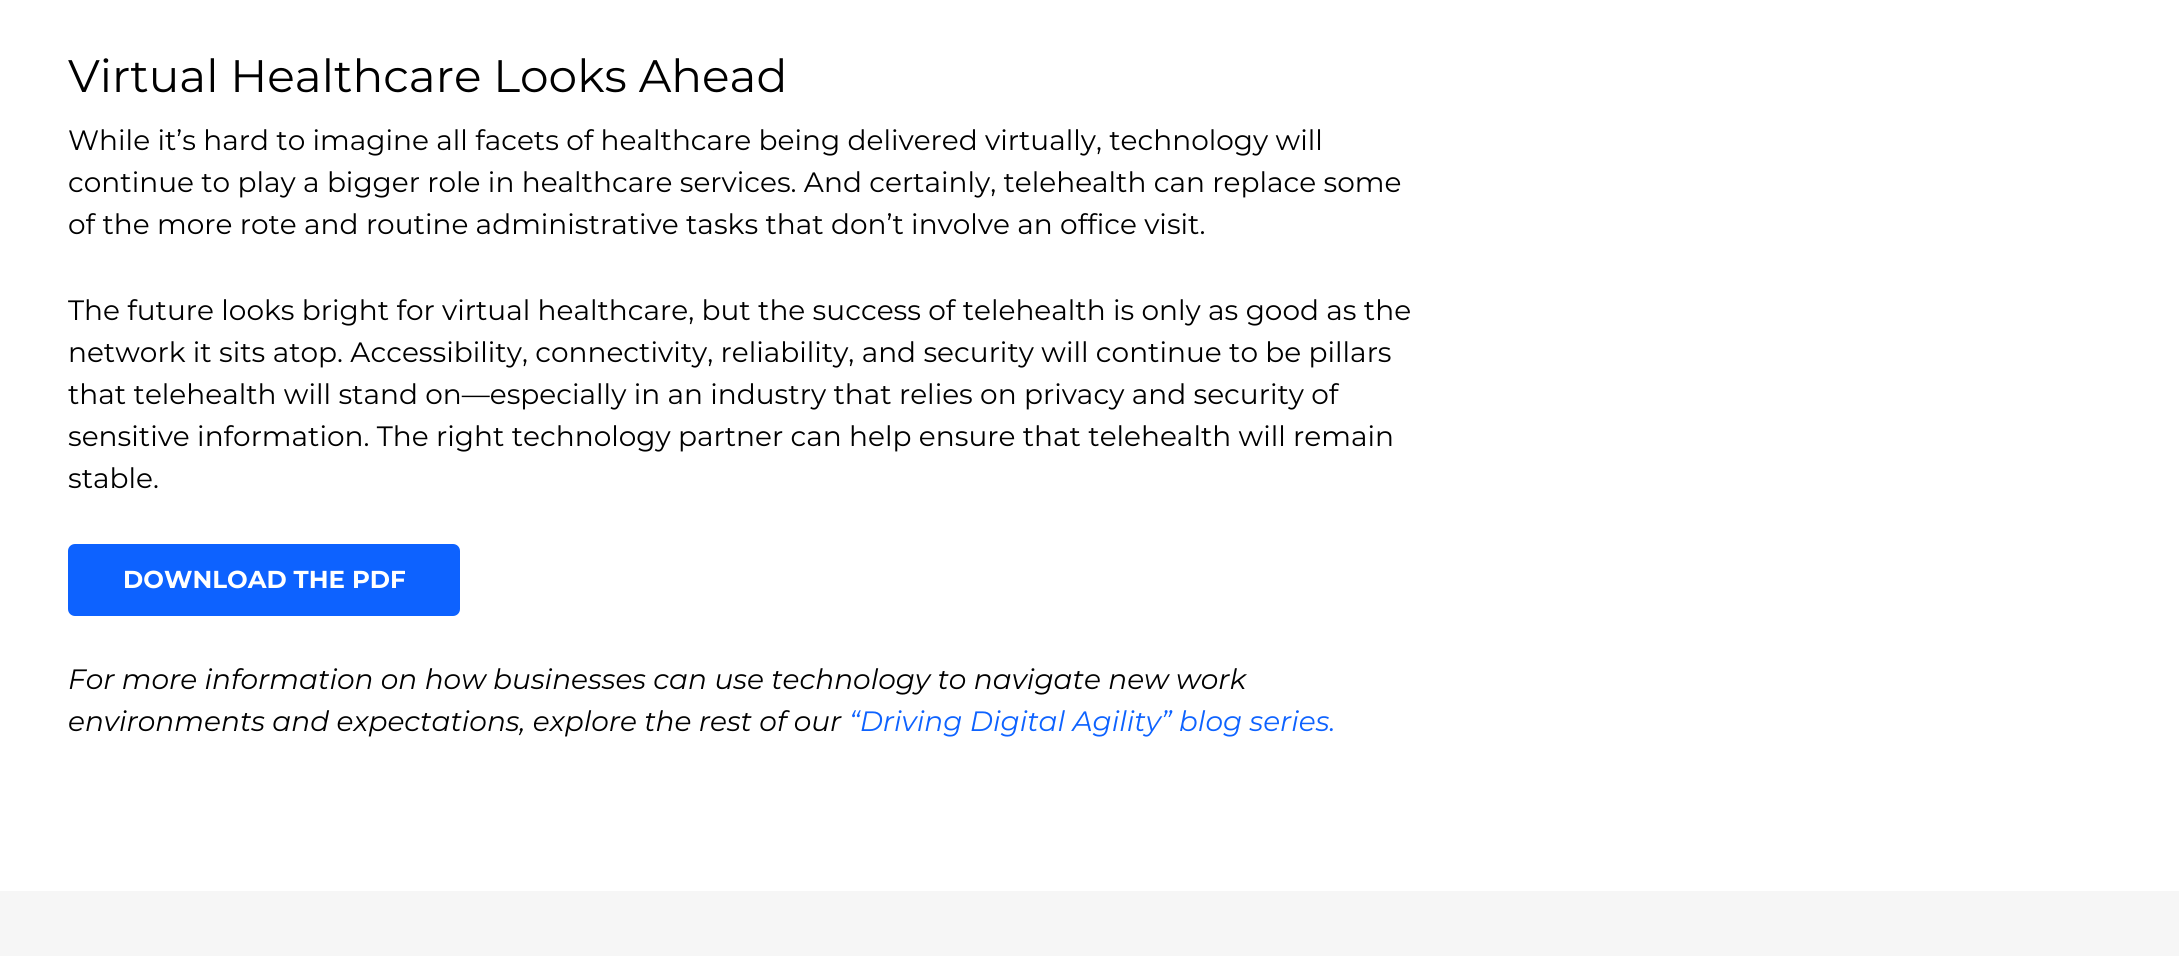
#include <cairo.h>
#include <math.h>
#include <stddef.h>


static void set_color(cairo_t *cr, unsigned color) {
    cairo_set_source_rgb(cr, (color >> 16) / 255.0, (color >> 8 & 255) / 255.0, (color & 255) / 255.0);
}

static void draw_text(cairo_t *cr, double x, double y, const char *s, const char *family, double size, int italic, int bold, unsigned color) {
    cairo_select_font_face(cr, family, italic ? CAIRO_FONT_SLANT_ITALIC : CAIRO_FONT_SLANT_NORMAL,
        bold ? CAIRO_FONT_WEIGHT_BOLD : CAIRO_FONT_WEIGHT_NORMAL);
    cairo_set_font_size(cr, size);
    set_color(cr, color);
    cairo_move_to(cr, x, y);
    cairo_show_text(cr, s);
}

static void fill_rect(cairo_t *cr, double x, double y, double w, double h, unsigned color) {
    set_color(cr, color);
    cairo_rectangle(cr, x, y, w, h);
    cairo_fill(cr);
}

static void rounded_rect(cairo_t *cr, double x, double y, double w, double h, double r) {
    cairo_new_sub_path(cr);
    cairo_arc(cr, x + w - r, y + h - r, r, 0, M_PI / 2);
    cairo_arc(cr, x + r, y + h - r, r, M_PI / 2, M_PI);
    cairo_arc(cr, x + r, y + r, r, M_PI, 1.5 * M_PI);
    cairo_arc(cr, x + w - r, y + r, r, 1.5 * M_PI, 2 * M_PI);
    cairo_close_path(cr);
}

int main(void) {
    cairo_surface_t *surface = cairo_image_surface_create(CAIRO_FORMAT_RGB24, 2179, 956);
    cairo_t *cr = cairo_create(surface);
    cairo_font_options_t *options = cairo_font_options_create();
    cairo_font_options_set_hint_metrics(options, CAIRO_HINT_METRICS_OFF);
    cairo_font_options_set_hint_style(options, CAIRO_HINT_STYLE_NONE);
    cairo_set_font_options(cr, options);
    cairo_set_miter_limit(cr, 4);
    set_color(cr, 0xFFFFFF);
    cairo_paint(cr);
    draw_text(cr, 68, 92, "Virtual Healthcare Looks Ahead", "Montserrat", 45.5, 0, 0, 0x000000);
    draw_text(cr, 68, 150, "While it’s hard to imagine all facets of healthcare being delivered virtually, technology will", "Montserrat", 28, 0, 0, 0x000000);
    draw_text(cr, 68, 192, "continue to play a bigger role in healthcare services. And certainly, telehealth can replace some", "Montserrat", 28, 0, 0, 0x000000);
    draw_text(cr, 68, 234, "of the more rote and routine administrative tasks that don’t involve an office visit.", "Montserrat", 28, 0, 0, 0x000000);
    draw_text(cr, 68, 320, "The future looks bright for virtual healthcare, but the success of telehealth is only as good as the", "Montserrat", 28, 0, 0, 0x000000);
    draw_text(cr, 68, 362, "network it sits atop. Accessibility, connectivity, reliability, and security will continue to be pillars", "Montserrat", 28, 0, 0, 0x000000);
    draw_text(cr, 68, 404, "that telehealth will stand on—especially in an industry that relies on privacy and security of", "Montserrat", 28, 0, 0, 0x000000);
    draw_text(cr, 68, 446, "sensitive information. The right technology partner can help ensure that telehealth will remain", "Montserrat", 28, 0, 0, 0x000000);
    draw_text(cr, 68, 488, "stable.", "Montserrat", 28, 0, 0, 0x000000);
    set_color(cr, 0x0D62FF);
    rounded_rect(cr, 68, 544, 392, 72, 7);
    cairo_fill(cr);
    draw_text(cr, 123, 588, "DOWNLOAD THE PDF", "Montserrat", 24.5, 0, 1, 0xFFFFFF);
    draw_text(cr, 68, 689, "For more information on how businesses can use technology to navigate new work", "Montserrat", 28, 1, 0, 0x000000);
    draw_text(cr, 68, 731, "environments and expectations, explore the rest of our", "Montserrat", 28, 1, 0, 0x000000);
    draw_text(cr, 849, 731, "“Driving Digital Agility” blog series.", "Montserrat", 28, 1, 0, 0x0D62FF);
    fill_rect(cr, 0, 891, 2179, 65, 0xF6F6F6);
    cairo_surface_write_to_png(surface, "output.png");
    cairo_font_options_destroy(options);
    cairo_destroy(cr);
    cairo_surface_destroy(surface);
    return 0;
}
